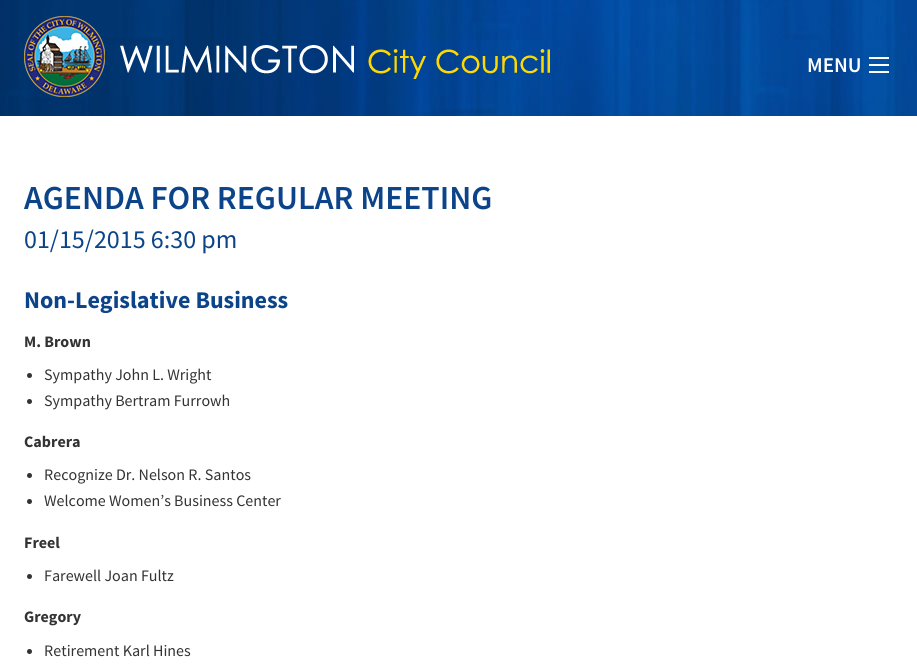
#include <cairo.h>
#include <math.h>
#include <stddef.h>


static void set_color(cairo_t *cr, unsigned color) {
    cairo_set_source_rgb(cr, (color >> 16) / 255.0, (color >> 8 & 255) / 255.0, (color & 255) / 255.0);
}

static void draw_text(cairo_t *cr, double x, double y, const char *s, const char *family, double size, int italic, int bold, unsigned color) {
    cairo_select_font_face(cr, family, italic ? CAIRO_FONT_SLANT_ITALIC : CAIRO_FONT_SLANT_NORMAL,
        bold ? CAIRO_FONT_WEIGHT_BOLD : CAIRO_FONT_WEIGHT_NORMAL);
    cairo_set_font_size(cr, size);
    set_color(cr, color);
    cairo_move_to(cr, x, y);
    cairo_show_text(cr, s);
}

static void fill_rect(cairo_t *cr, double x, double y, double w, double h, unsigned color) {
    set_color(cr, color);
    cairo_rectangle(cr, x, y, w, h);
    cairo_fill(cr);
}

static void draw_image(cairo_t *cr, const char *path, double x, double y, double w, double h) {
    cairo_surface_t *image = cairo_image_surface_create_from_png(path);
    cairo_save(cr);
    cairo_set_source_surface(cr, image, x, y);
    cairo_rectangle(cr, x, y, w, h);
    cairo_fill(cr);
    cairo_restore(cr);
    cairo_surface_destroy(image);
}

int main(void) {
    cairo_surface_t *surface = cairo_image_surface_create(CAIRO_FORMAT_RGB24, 917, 664);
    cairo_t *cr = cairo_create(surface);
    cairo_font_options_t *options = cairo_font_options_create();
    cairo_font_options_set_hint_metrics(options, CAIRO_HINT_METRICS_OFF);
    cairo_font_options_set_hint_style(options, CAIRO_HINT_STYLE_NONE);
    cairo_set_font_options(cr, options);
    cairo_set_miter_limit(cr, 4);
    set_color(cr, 0xFFFFFF);
    cairo_paint(cr);
    draw_image(cr, "assets/img1.png", 0, 0, 917, 116);
    draw_image(cr, "assets/img2.png", 24, 16, 526, 81);
    draw_text(cr, 807, 72, "MENU", "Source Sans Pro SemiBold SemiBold", 21, 0, 0, 0xFFFFFF);
    fill_rect(cr, 869, 71, 20, 2, 0xFEFEFE);
    fill_rect(cr, 869, 64, 20, 2, 0xFEFEFE);
    fill_rect(cr, 869, 57, 20, 2, 0xFEFEFE);
    draw_text(cr, 24, 209, "AGENDA FOR REGULAR MEETING", "Source Sans Pro SemiBold SemiBold", 33.6, 0, 0, 0x0C4489);
    draw_text(cr, 24, 248, "01/15/2015 6:30 pm", "Source Sans Pro", 26, 0, 0, 0x0C4489);
    draw_text(cr, 24, 308, "Non-Legislative Business", "Source Sans Pro", 24, 0, 1, 0x0C4489);
    draw_text(cr, 24, 347, "M. Brown", "Source Sans Pro", 16, 0, 1, 0x333333);
    cairo_new_path(cr);
    cairo_arc(cr, 29.5, 375.5, 2.5, 0, 2 * M_PI);
    cairo_fill(cr);
    draw_text(cr, 44, 380, "Sympathy John L. Wright", "Source Sans Pro", 16, 0, 0, 0x333333);
    cairo_new_path(cr);
    cairo_arc(cr, 29.5, 401.5, 2.5, 0, 2 * M_PI);
    cairo_fill(cr);
    draw_text(cr, 44, 406, "Sympathy Bertram Furrowh", "Source Sans Pro", 16, 0, 0, 0x333333);
    draw_text(cr, 24, 447, "Cabrera", "Source Sans Pro", 16, 0, 1, 0x333333);
    cairo_new_path(cr);
    cairo_arc(cr, 29.5, 475.5, 2.5, 0, 2 * M_PI);
    cairo_fill(cr);
    draw_text(cr, 44, 480, "Recognize Dr. Nelson R. Santos", "Source Sans Pro", 16, 0, 0, 0x333333);
    cairo_new_path(cr);
    cairo_arc(cr, 29.5, 501.5, 2.5, 0, 2 * M_PI);
    cairo_fill(cr);
    draw_text(cr, 44, 506, "Welcome Women’s Business Center", "Source Sans Pro", 16, 0, 0, 0x333333);
    draw_text(cr, 24, 548, "Freel", "Source Sans Pro", 16, 0, 1, 0x333333);
    cairo_new_path(cr);
    cairo_arc(cr, 29.5, 576.5, 2.5, 0, 2 * M_PI);
    cairo_fill(cr);
    draw_text(cr, 44, 581, "Farewell Joan Fultz", "Source Sans Pro", 16, 0, 0, 0x333333);
    draw_text(cr, 24, 622, "Gregory", "Source Sans Pro", 16, 0, 1, 0x333333);
    cairo_new_path(cr);
    cairo_arc(cr, 29.5, 651.5, 2.5, 0, 2 * M_PI);
    cairo_fill(cr);
    draw_text(cr, 44, 656, "Retirement Karl Hines", "Source Sans Pro", 16, 0, 0, 0x333333);
    cairo_surface_write_to_png(surface, "output.png");
    cairo_font_options_destroy(options);
    cairo_destroy(cr);
    cairo_surface_destroy(surface);
    return 0;
}
